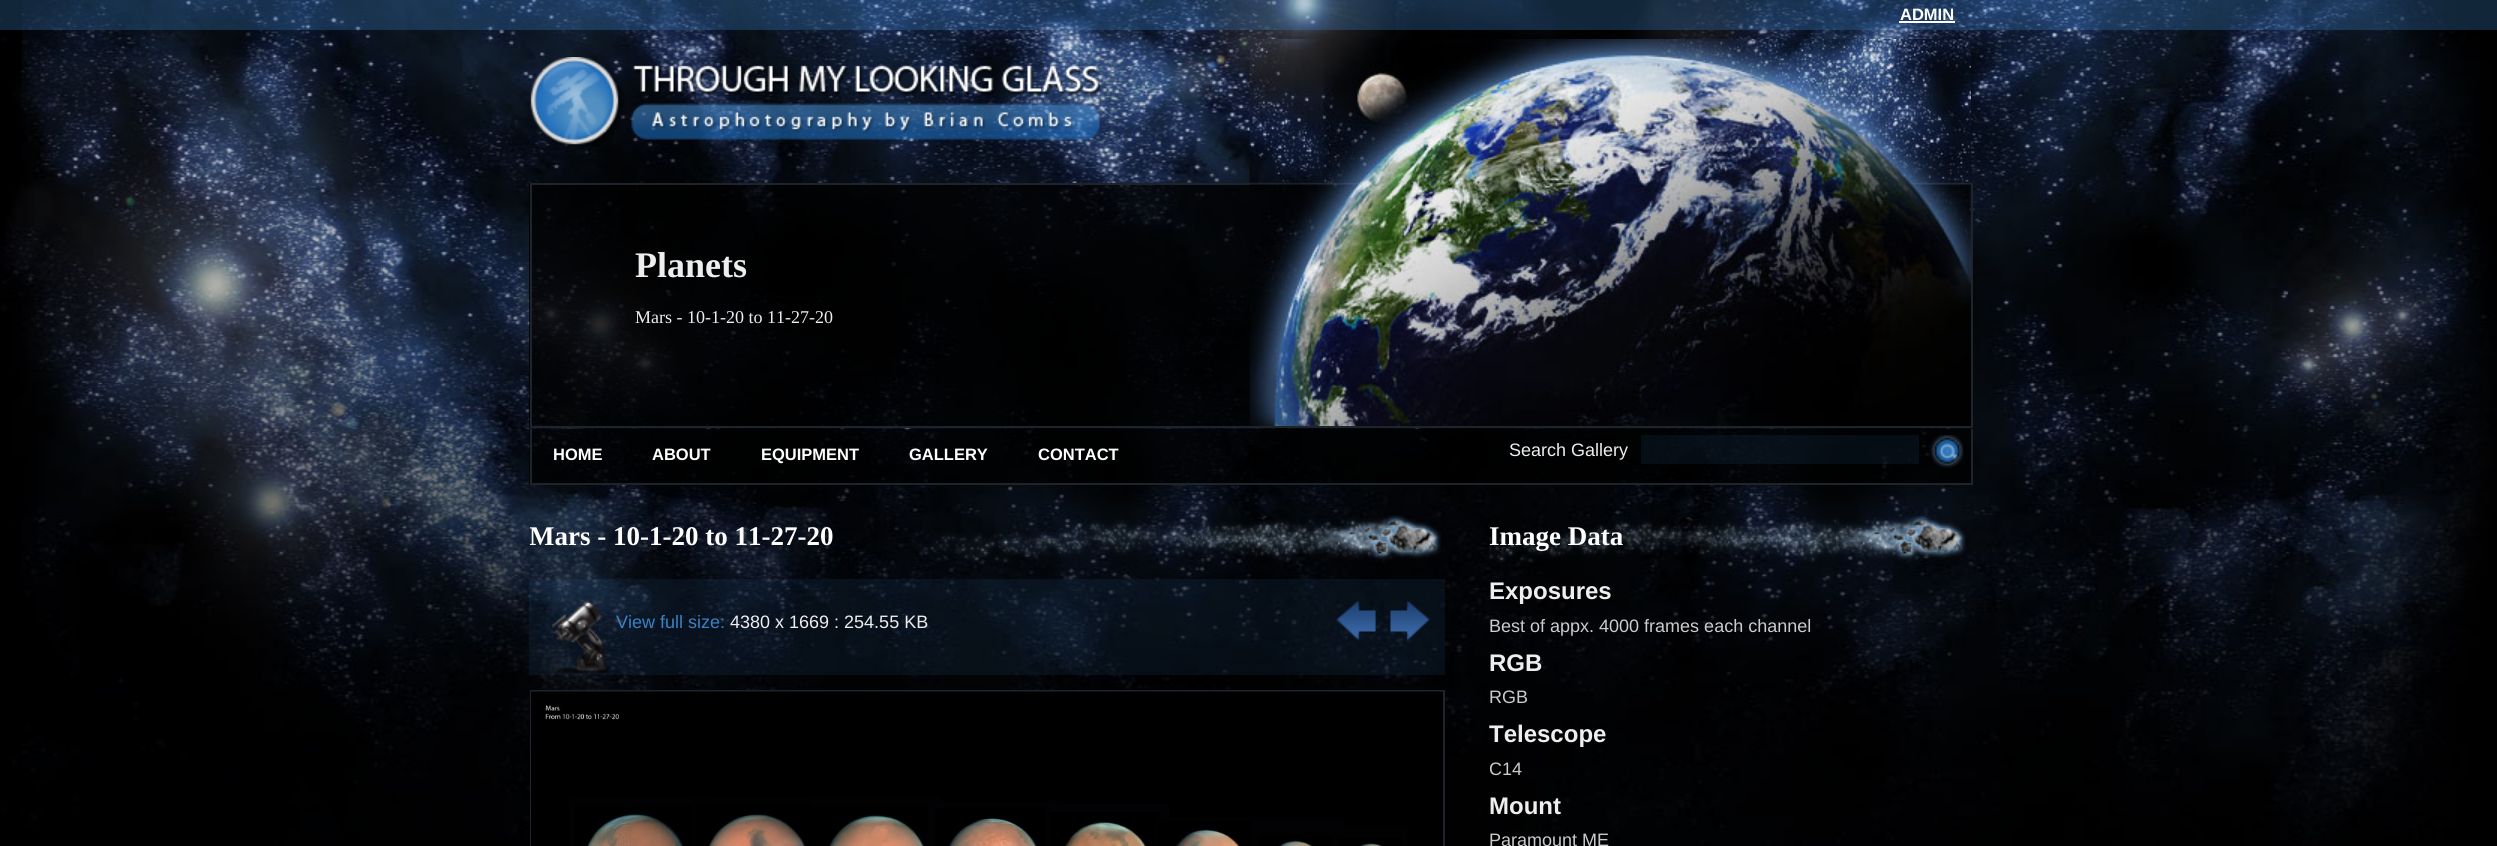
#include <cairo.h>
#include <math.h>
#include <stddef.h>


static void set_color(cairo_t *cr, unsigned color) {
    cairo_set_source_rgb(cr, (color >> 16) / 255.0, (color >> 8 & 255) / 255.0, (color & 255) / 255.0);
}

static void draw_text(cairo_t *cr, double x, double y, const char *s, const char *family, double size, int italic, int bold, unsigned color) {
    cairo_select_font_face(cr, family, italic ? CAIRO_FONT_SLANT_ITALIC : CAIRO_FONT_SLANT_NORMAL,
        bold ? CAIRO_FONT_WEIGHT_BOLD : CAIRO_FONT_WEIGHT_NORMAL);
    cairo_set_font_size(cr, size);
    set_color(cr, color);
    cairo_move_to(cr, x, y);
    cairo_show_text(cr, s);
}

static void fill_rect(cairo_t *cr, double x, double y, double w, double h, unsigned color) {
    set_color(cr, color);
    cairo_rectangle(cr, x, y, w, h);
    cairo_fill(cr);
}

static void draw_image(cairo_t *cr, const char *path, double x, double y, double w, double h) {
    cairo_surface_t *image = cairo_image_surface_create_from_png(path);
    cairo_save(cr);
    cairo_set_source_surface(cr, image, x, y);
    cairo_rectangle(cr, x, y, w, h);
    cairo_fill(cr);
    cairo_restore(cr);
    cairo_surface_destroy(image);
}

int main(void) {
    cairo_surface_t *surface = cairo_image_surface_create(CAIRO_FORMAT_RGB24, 2497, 846);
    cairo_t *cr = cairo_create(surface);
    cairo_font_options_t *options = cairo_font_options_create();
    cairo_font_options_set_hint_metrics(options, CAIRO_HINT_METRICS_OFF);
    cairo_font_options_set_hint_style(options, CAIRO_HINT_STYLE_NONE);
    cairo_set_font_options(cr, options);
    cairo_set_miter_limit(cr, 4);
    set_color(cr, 0xFFFFFF);
    cairo_paint(cr);
    draw_image(cr, "assets/img1.png", 0, 0, 2497, 846);
    cairo_set_source_rgba(cr, 0.235, 0.506, 0.765, 0.3);
    cairo_rectangle(cr, 0, 0, 2497, 30);
    cairo_fill(cr);
    draw_text(cr, 1900, 20, "ADMIN", "Liberation Sans", 16.5, 0, 1, 0xFFFFFF);
    fill_rect(cr, 1899, 21, 56, 2, 0xFFFFFF);
    draw_image(cr, "assets/img2.png", 530, 57, 571, 89);
    cairo_set_source_rgba(cr, 0, 0, 0, 0.76);
    cairo_rectangle(cr, 529, 183, 721, 245);
    cairo_fill(cr);
    cairo_rectangle(cr, 531, 184, 1441, 243);
    set_color(cr, 0x1F242A);
    cairo_stroke(cr);
    draw_text(cr, 635, 277, "Planets", "Liberation Serif", 36, 0, 1, 0xEEEEEE);
    draw_image(cr, "assets/img3.png", 1249, 39, 722, 387);
    draw_text(cr, 635, 323, "Mars - 10-1-20 to 11-27-20", "Liberation Serif", 18, 0, 0, 0xEEEEEE);
    cairo_set_source_rgba(cr, 0, 0, 0, 0.76);
    cairo_rectangle(cr, 529, 429, 1442, 56);
    cairo_fill(cr);
    fill_rect(cr, 1971, 429, 2, 56, 0x1F242A);
    fill_rect(cr, 530, 483, 1443, 2, 0x1F242A);
    fill_rect(cr, 530, 429, 2, 56, 0x1F242A);
    draw_text(cr, 553, 460, "HOME", "Liberation Sans", 16.5, 0, 1, 0xFFFFFF);
    draw_text(cr, 652, 460, "ABOUT", "Liberation Sans", 16.5, 0, 1, 0xFFFFFF);
    draw_text(cr, 761, 460, "EQUIPMENT", "Liberation Sans", 16.5, 0, 1, 0xFFFFFF);
    draw_text(cr, 909, 460, "GALLERY", "Liberation Sans", 16.5, 0, 1, 0xFFFFFF);
    draw_text(cr, 1038, 460, "CONTACT", "Liberation Sans", 16.5, 0, 1, 0xFFFFFF);
    draw_text(cr, 1509, 456, "Search Gallery", "Liberation Sans", 18, 0, 0, 0xEEEEEE);
    cairo_set_source_rgba(cr, 0.231, 0.502, 0.769, 0.1);
    cairo_rectangle(cr, 1641, 435, 278, 29);
    cairo_fill(cr);
    draw_image(cr, "assets/img4.png", 1930, 435, 34, 33);
    draw_image(cr, "assets/img5.png", 912, 515, 529, 48);
    cairo_save(cr);
    cairo_rectangle(cr, 530, 512, 1440, 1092);
    cairo_clip(cr);
    draw_text(cr, 529, 545, "Mars - 10-1-20 to 11-27-20", "Liberation Serif", 27, 0, 1, 0xFFFFFF);
    cairo_restore(cr);
    cairo_rectangle(cr, 529, 579, 916, 96);
    cairo_fill(cr);
    draw_image(cr, "assets/img6.png", 551, 601, 60, 73);
    draw_text(cr, 616, 628, "View full size:", "Liberation Sans", 18, 0, 0, 0x3B81C5);
    draw_text(cr, 730, 628, "4380 x 1669 : 254.55 KB", "Liberation Sans", 18, 0, 0, 0xEEEEEE);
    draw_image(cr, "assets/img7.png", 1336, 601, 40, 40);
    draw_image(cr, "assets/img8.png", 1390, 601, 40, 40);
    cairo_rectangle(cr, 531, 691, 913, 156);
    set_color(cr, 0x1F242A);
    cairo_stroke(cr);
    draw_image(cr, "assets/img9.png", 531, 691, 912, 155);
    draw_image(cr, "assets/img10.png", 1489, 515, 477, 48);
    draw_text(cr, 1489, 545, "Image Data", "Liberation Serif", 27, 0, 1, 0xFFFFFF);
    draw_text(cr, 1489, 599, "Exposures", "Liberation Sans", 24, 0, 1, 0xEEEEEE);
    draw_text(cr, 1489, 632, "Best of appx. 4000 frames each channel", "Liberation Sans", 18, 0, 0, 0xCCCCCC);
    draw_text(cr, 1489, 671, "RGB", "Liberation Sans", 24, 0, 1, 0xEEEEEE);
    draw_text(cr, 1489, 703, "RGB", "Liberation Sans", 18, 0, 0, 0xCCCCCC);
    draw_text(cr, 1489, 742, "Telescope", "Liberation Sans", 24, 0, 1, 0xEEEEEE);
    draw_text(cr, 1489, 775, "C14", "Liberation Sans", 18, 0, 0, 0xCCCCCC);
    draw_text(cr, 1489, 814, "Mount", "Liberation Sans", 24, 0, 1, 0xEEEEEE);
    draw_text(cr, 1489, 846, "Paramount ME", "Liberation Sans", 18, 0, 0, 0xCCCCCC);
    cairo_surface_write_to_png(surface, "output.png");
    cairo_font_options_destroy(options);
    cairo_destroy(cr);
    cairo_surface_destroy(surface);
    return 0;
}
